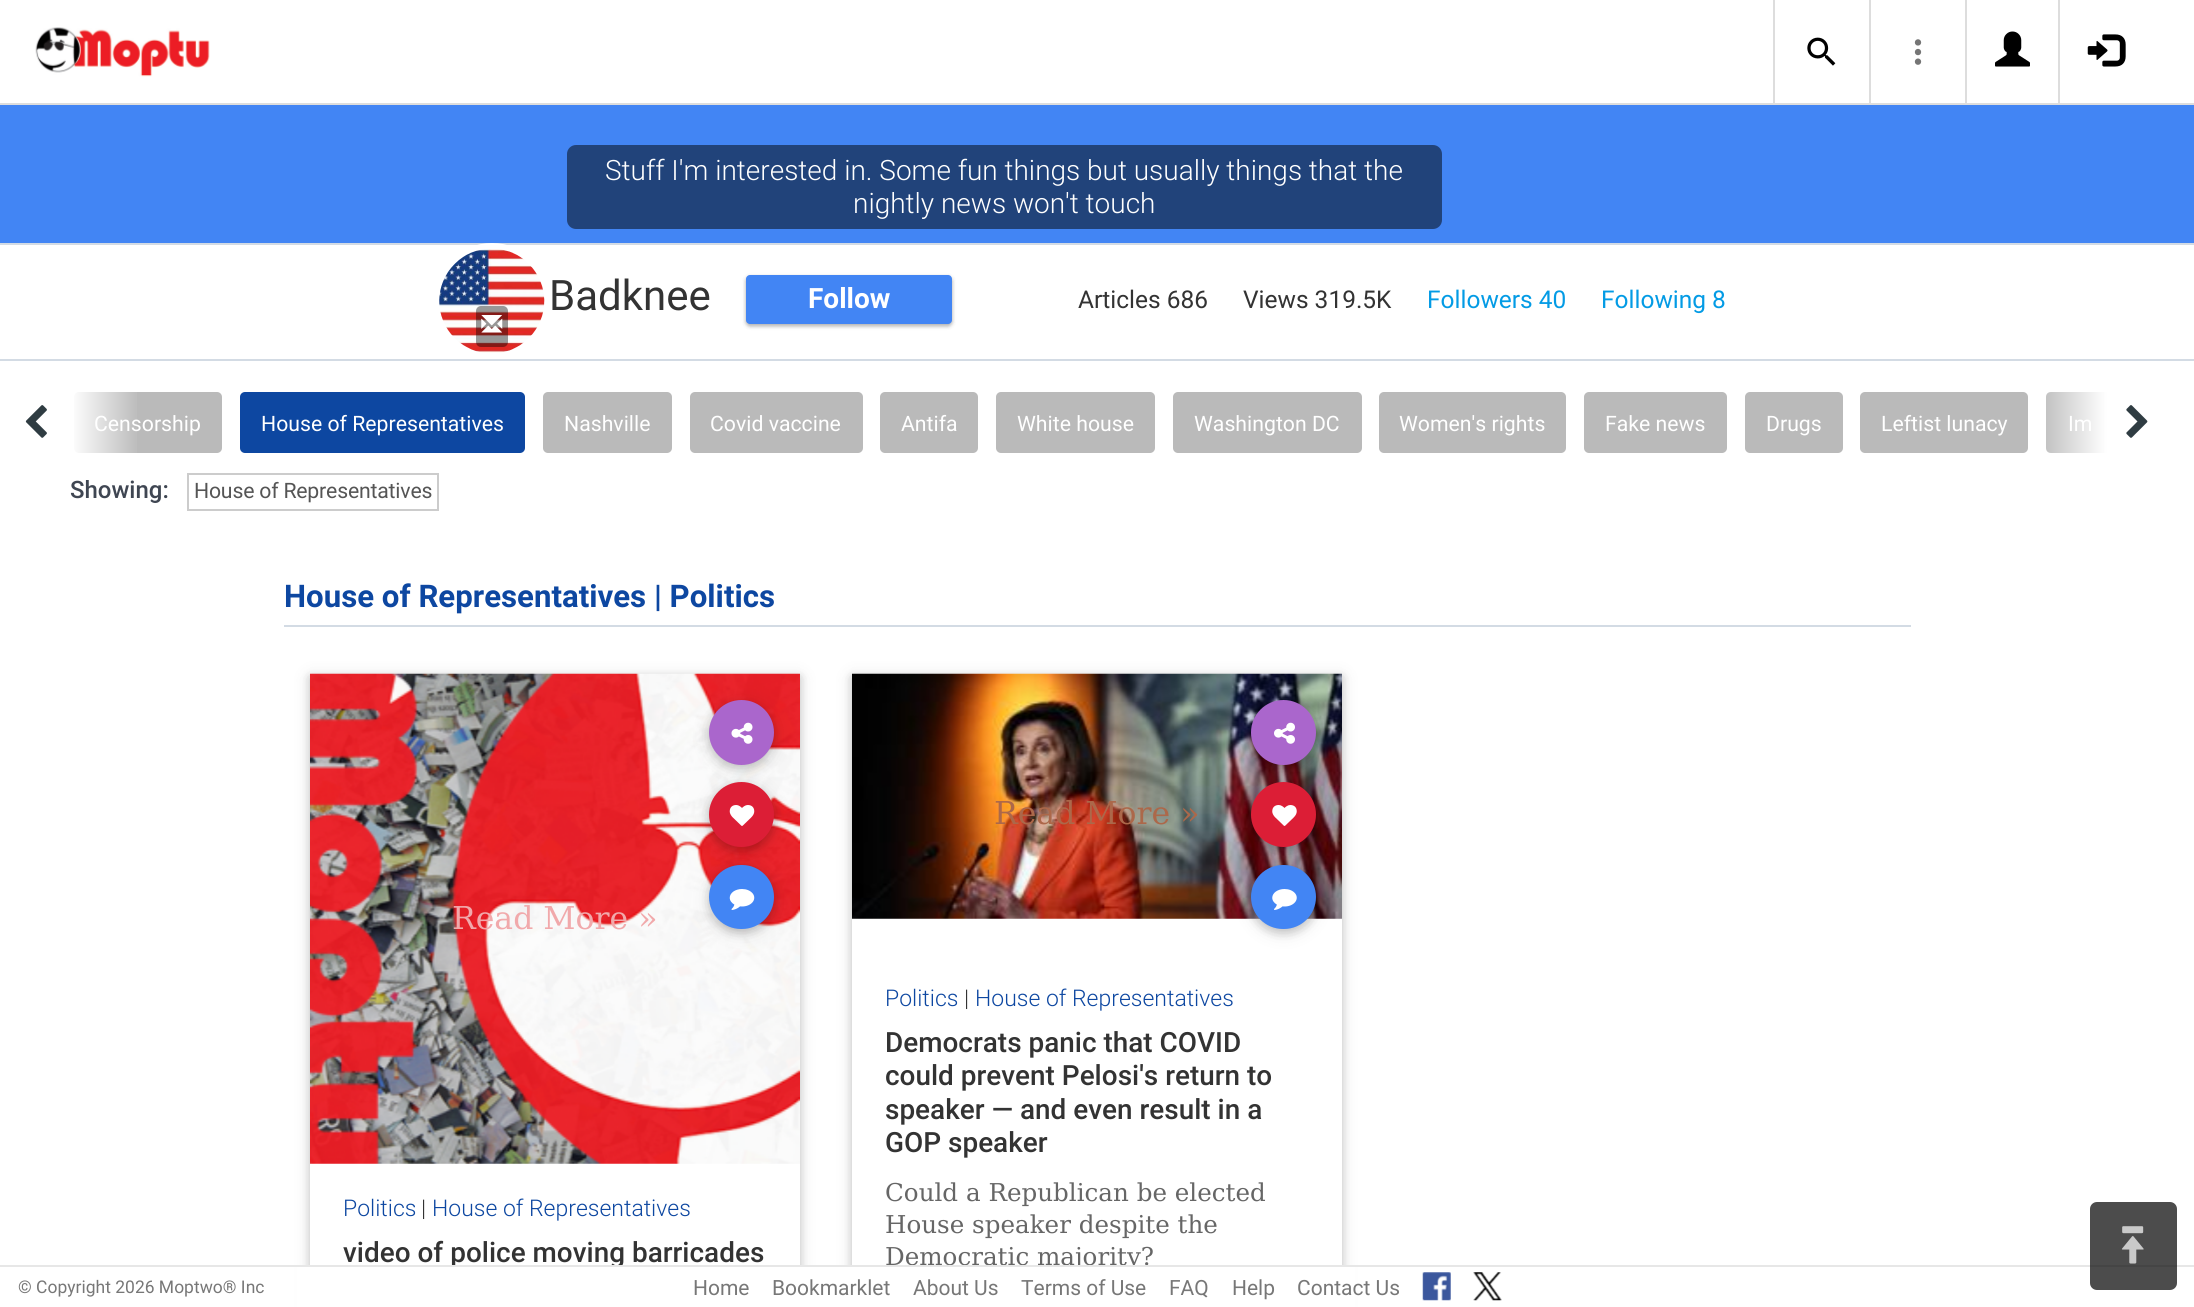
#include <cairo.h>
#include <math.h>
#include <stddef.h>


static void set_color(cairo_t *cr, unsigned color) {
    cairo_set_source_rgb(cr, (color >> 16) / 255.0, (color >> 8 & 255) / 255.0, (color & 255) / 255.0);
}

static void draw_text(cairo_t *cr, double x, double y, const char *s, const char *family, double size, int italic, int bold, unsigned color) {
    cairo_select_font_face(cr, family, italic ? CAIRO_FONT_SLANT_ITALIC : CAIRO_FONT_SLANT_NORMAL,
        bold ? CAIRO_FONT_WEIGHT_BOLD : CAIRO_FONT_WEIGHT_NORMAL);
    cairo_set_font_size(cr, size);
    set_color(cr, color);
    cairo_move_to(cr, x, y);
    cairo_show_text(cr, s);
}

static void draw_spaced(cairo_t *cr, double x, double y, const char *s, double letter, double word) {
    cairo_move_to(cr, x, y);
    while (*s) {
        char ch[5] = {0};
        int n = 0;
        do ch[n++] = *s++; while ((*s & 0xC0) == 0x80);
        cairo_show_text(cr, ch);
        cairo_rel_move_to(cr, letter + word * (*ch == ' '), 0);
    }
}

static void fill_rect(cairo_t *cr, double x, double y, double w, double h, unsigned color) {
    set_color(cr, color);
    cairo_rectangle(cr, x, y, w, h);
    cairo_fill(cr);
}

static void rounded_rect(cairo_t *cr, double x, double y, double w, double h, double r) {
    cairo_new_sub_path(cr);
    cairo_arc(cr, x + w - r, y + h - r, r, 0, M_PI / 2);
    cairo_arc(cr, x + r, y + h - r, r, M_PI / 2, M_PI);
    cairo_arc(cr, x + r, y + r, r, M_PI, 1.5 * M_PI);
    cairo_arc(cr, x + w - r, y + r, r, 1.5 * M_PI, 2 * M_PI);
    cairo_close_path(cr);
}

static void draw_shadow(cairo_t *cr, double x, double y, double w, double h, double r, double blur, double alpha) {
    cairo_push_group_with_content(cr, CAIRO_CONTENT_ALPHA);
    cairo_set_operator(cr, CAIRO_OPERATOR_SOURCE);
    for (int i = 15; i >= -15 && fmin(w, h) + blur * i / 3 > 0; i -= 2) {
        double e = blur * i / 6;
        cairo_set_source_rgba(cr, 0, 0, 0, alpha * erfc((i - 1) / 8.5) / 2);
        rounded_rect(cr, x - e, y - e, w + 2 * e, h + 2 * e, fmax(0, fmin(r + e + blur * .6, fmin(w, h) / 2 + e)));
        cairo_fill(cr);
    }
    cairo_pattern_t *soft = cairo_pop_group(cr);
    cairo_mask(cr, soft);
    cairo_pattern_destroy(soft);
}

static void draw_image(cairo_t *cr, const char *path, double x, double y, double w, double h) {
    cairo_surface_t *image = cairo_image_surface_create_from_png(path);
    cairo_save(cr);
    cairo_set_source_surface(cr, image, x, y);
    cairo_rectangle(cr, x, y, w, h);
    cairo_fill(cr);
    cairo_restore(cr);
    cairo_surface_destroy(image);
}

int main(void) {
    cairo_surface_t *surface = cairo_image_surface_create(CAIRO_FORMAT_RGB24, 2194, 1307);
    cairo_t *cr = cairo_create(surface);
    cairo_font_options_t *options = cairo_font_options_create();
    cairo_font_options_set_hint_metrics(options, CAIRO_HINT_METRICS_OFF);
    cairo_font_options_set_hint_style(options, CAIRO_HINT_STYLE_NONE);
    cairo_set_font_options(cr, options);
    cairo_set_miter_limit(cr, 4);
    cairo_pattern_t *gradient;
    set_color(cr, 0xFFFFFF);
    cairo_paint(cr);
    fill_rect(cr, 0, 103, 2194, 2, 0xDDDDDD);
    draw_image(cr, "assets/img1.png", 35, 27, 175, 50);
    fill_rect(cr, 1773, 0, 2, 103, 0xDDDDDD);
    draw_image(cr, "assets/img2.png", 1807, 37, 29, 29);
    fill_rect(cr, 1869, 0, 2, 103, 0xDDDDDD);
    draw_image(cr, "assets/img3.png", 1914, 39, 8, 26);
    fill_rect(cr, 1965, 0, 2, 103, 0xDDDDDD);
    draw_image(cr, "assets/img4.png", 1995, 31, 35, 36);
    fill_rect(cr, 2058, 0, 2, 103, 0xDDDDDD);
    draw_image(cr, "assets/img5.png", 2087, 34, 39, 33);
    fill_rect(cr, 0, 105, 2194, 138, 0x4285F4);
    fill_rect(cr, 0, 243, 2194, 2, 0xD3DBE4);
    fill_rect(cr, 0, 359, 2194, 2, 0xD3DBE4);
    set_color(cr, 0x21437A);
    rounded_rect(cr, 567, 145, 875, 84, 9);
    cairo_fill(cr);
    draw_text(cr, 605, 180, "Stuff I'm interested in. Some fun things but usually things that the", "Roboto Light", 28, 0, 0, 0xFFFFFF);
    draw_text(cr, 853, 213, "nightly news won't touch", "Roboto Light", 28, 0, 0, 0xFFFFFF);
    cairo_new_path(cr);
    cairo_arc(cr, 492, 301, 55.5, 0, 2 * M_PI);
    cairo_fill_preserve(cr);
    cairo_set_line_width(cr, 5);
    cairo_stroke(cr);
    draw_image(cr, "assets/img6.png", 439, 249, 106, 104);
    cairo_set_source_rgba(cr, 0, 0, 0, 0.4);
    rounded_rect(cr, 476, 306, 32, 41, 5);
    cairo_fill(cr);
    draw_image(cr, "assets/img7.png", 481, 315, 22, 18);
    draw_text(cr, 549, 310, "Badknee", "Roboto", 42, 0, 0, 0x333333);
    set_color(cr, 0x000000);
    draw_shadow(cr, 746, 277, 206, 49, 4, 2, 0.24);
    draw_shadow(cr, 746, 277, 206, 49, 4, 2.5, 0.12);
    set_color(cr, 0x4285F4);
    rounded_rect(cr, 746, 275, 206, 49, 4);
    cairo_fill(cr);
    draw_text(cr, 808, 308, "Follow", "Roboto", 28, 0, 1, 0xFFFFFF);
    draw_text(cr, 1078, 308, "Articles 686", "Roboto", 24.5, 0, 0, 0x333333);
    draw_text(cr, 1243, 308, "Views 319.5K", "Roboto", 24.5, 0, 0, 0x333333);
    draw_text(cr, 1427, 308, "Followers 40", "Roboto", 24.5, 0, 0, 0x039BE5);
    draw_text(cr, 1601, 308, "Following 8", "Roboto", 24.5, 0, 0, 0x039BE5);
    set_color(cr, 0xBABABA);
    rounded_rect(cr, 74, 392, 148, 61, 5);
    cairo_fill(cr);
    draw_text(cr, 94, 431, "Censorship", "Roboto", 21.25, 0, 0, 0xFFFFFF);
    gradient = cairo_pattern_create_linear(70, 424, 140, 424);
    cairo_pattern_add_color_stop_rgba(gradient, 0, 1, 1, 1, 1);
    cairo_pattern_add_color_stop_rgba(gradient, 1, 1, 1, 1, 0);
    cairo_set_source(cr, gradient);
    cairo_pattern_destroy(gradient);
    cairo_rectangle(cr, 74, 392, 63, 61);
    cairo_fill(cr);
    draw_image(cr, "assets/img8.png", 25, 405, 22, 33);
    set_color(cr, 0xBABABA);
    cairo_new_path(cr);
    cairo_move_to(cr, 2051, 392);
    cairo_line_to(cr, 2107, 392);
    cairo_line_to(cr, 2107, 453);
    cairo_line_to(cr, 2051, 453);
    cairo_curve_to(cr, 2048, 453, 2046, 451, 2046, 448);
    cairo_line_to(cr, 2046, 397);
    cairo_curve_to(cr, 2046, 394, 2048, 392, 2051, 392);
    cairo_close_path(cr);
    cairo_fill(cr);
    draw_text(cr, 2068, 431, "Im", "Roboto", 21.25, 0, 0, 0xFFFFFF);
    gradient = cairo_pattern_create_linear(2037, 424, 2107, 424);
    cairo_pattern_add_color_stop_rgba(gradient, 0, 1, 1, 1, 0);
    cairo_pattern_add_color_stop_rgba(gradient, 1, 1, 1, 1, 1);
    cairo_set_source(cr, gradient);
    cairo_pattern_destroy(gradient);
    cairo_rectangle(cr, 2046, 392, 61, 61);
    cairo_fill(cr);
    draw_image(cr, "assets/img9.png", 2126, 405, 22, 33);
    set_color(cr, 0x0D47A1);
    rounded_rect(cr, 240, 392, 285, 61, 5);
    cairo_fill(cr);
    draw_text(cr, 261, 431, "House of Representatives", "Roboto", 21.25, 0, 0, 0xFFFFFF);
    set_color(cr, 0xBABABA);
    rounded_rect(cr, 543, 392, 129, 61, 5);
    cairo_fill(cr);
    draw_text(cr, 564, 431, "Nashville", "Roboto", 21.25, 0, 0, 0xFFFFFF);
    set_color(cr, 0xBABABA);
    rounded_rect(cr, 690, 392, 173, 61, 5);
    cairo_fill(cr);
    draw_text(cr, 710, 431, "Covid vaccine", "Roboto", 21.25, 0, 0, 0xFFFFFF);
    set_color(cr, 0xBABABA);
    rounded_rect(cr, 880, 392, 98, 61, 5);
    cairo_fill(cr);
    draw_text(cr, 901, 431, "Antifa", "Roboto", 21.25, 0, 0, 0xFFFFFF);
    set_color(cr, 0xBABABA);
    rounded_rect(cr, 996, 392, 159, 61, 5);
    cairo_fill(cr);
    draw_text(cr, 1017, 431, "White house", "Roboto", 21.25, 0, 0, 0xFFFFFF);
    set_color(cr, 0xBABABA);
    rounded_rect(cr, 1173, 392, 189, 61, 5);
    cairo_fill(cr);
    draw_text(cr, 1194, 431, "Washington DC", "Roboto", 21.25, 0, 0, 0xFFFFFF);
    set_color(cr, 0xBABABA);
    rounded_rect(cr, 1379, 392, 187, 61, 5);
    cairo_fill(cr);
    draw_text(cr, 1399, 431, "Women's rights", "Roboto", 21.25, 0, 0, 0xFFFFFF);
    set_color(cr, 0xBABABA);
    rounded_rect(cr, 1584, 392, 143, 61, 5);
    cairo_fill(cr);
    draw_text(cr, 1605, 431, "Fake news", "Roboto", 21.25, 0, 0, 0xFFFFFF);
    set_color(cr, 0xBABABA);
    rounded_rect(cr, 1745, 392, 98, 61, 5);
    cairo_fill(cr);
    draw_text(cr, 1766, 431, "Drugs", "Roboto", 21.25, 0, 0, 0xFFFFFF);
    set_color(cr, 0xBABABA);
    rounded_rect(cr, 1860, 392, 168, 61, 5);
    cairo_fill(cr);
    draw_text(cr, 1881, 431, "Leftist lunacy", "Roboto", 21.25, 0, 0, 0xFFFFFF);
    draw_text(cr, 70, 498, "Showing:", "Roboto Medium", 24, 0, 0, 0x3F4652);
    cairo_rectangle(cr, 188, 474, 250, 36);
    set_color(cr, 0xCCCCCC);
    cairo_set_line_width(cr, 2);
    cairo_stroke(cr);
    cairo_select_font_face(cr, "Roboto", CAIRO_FONT_SLANT_NORMAL, CAIRO_FONT_WEIGHT_NORMAL);
    cairo_set_font_size(cr, 21.25);
    set_color(cr, 0x555555);
    draw_spaced(cr, 194, 498, "House of Representatives", -0.2, 0);
    fill_rect(cr, 284, 625, 1627, 2, 0xD3DBE4);
    draw_text(cr, 284, 607, "House of Representatives | Politics", "Roboto", 31.2, 0, 1, 0x0D47A1);
    set_color(cr, 0x000000);
    draw_shadow(cr, 310, 677, 490, 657, 0, 9, 0.12);
    draw_shadow(cr, 310, 677, 490, 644, 0, 4.5, 0.16);
    fill_rect(cr, 310, 1163, 490, 102, 0xFFFFFF);
    draw_image(cr, "assets/img10.png", 310, 673, 490, 491);
    draw_text(cr, 452, 929, "Read More »", "DejaVu Serif", 31.5, 0, 0, 0xF1A9AB);
    set_color(cr, 0x000000);
    draw_shadow(cr, 709, 704, 65, 64, 32, 9, 0.12);
    draw_shadow(cr, 709, 704, 65, 64, 32, 4.5, 0.16);
    set_color(cr, 0xAA66CC);
    cairo_arc(cr, 741.5, 732.5, 32.5, 0, 2 * M_PI);
    cairo_fill(cr);
    draw_image(cr, "assets/img11.png", 731, 722, 22, 22);
    set_color(cr, 0x000000);
    draw_shadow(cr, 709, 786, 65, 65, 32.5, 9, 0.12);
    draw_shadow(cr, 709, 786, 65, 65, 32.5, 4.5, 0.16);
    set_color(cr, 0xDC1E36);
    cairo_arc(cr, 741.5, 814.5, 32.5, 0, 2 * M_PI);
    cairo_fill(cr);
    draw_image(cr, "assets/img12.png", 729, 805, 26, 21);
    set_color(cr, 0x000000);
    draw_shadow(cr, 709, 868, 65, 65, 32.5, 9, 0.12);
    draw_shadow(cr, 709, 868, 65, 65, 32.5, 4.5, 0.16);
    set_color(cr, 0x4285F4);
    rounded_rect(cr, 709, 865, 65, 64, 32);
    cairo_fill(cr);
    draw_image(cr, "assets/img13.png", 729, 889, 26, 21);
    draw_text(cr, 343, 1216, "Politics", "Roboto Light", 23, 0, 0, 0x0D47A1);
    draw_text(cr, 421, 1216, "|", "Roboto Light", 23, 0, 0, 0x333333);
    draw_text(cr, 432, 1216, "House of Representatives", "Roboto Light", 23, 0, 0, 0x0D47A1);
    draw_text(cr, 343, 1262, "video of police moving barricades", "Roboto Medium", 27.9, 0, 0, 0x333333);
    set_color(cr, 0x000000);
    draw_shadow(cr, 852, 677, 490, 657, 0, 9, 0.12);
    draw_shadow(cr, 852, 677, 490, 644, 0, 4.5, 0.16);
    fill_rect(cr, 852, 918, 490, 347, 0xFFFFFF);
    draw_image(cr, "assets/img14.png", 852, 673, 490, 246);
    draw_text(cr, 994, 824, "Read More »", "DejaVu Serif", 31.5, 0, 0, 0xAC684A);
    set_color(cr, 0x000000);
    draw_shadow(cr, 1251, 704, 65, 64, 32, 9, 0.12);
    draw_shadow(cr, 1251, 704, 65, 64, 32, 4.5, 0.16);
    set_color(cr, 0xAA66CC);
    cairo_arc(cr, 1283.5, 732.5, 32.5, 0, 2 * M_PI);
    cairo_fill(cr);
    draw_image(cr, "assets/img15.png", 1274, 722, 21, 22);
    set_color(cr, 0x000000);
    draw_shadow(cr, 1251, 786, 65, 65, 32.5, 9, 0.12);
    draw_shadow(cr, 1251, 786, 65, 65, 32.5, 4.5, 0.16);
    set_color(cr, 0xDC1E36);
    cairo_arc(cr, 1283.5, 814.5, 32.5, 0, 2 * M_PI);
    cairo_fill(cr);
    draw_image(cr, "assets/img16.png", 1272, 805, 25, 21);
    set_color(cr, 0x000000);
    draw_shadow(cr, 1251, 868, 65, 65, 32.5, 9, 0.12);
    draw_shadow(cr, 1251, 868, 65, 65, 32.5, 4.5, 0.16);
    set_color(cr, 0x4285F4);
    rounded_rect(cr, 1251, 865, 65, 64, 32);
    cairo_fill(cr);
    draw_image(cr, "assets/img17.png", 1272, 889, 25, 21);
    draw_text(cr, 885, 1006, "Politics", "Roboto Light", 23, 0, 0, 0x0D47A1);
    draw_text(cr, 964, 1006, "|", "Roboto Light", 23, 0, 0, 0x333333);
    draw_text(cr, 975, 1006, "House of Representatives", "Roboto Light", 23, 0, 0, 0x0D47A1);
    draw_text(cr, 885, 1052, "Democrats panic that COVID", "Roboto Medium", 27.9, 0, 0, 0x333333);
    draw_text(cr, 885, 1085, "could prevent Pelosi's return to", "Roboto Medium", 27.9, 0, 0, 0x333333);
    draw_text(cr, 885, 1119, "speaker — and even result in a", "Roboto Medium", 27.9, 0, 0, 0x333333);
    draw_text(cr, 885, 1152, "GOP speaker", "Roboto Medium", 27.9, 0, 0, 0x333333);
    draw_text(cr, 885, 1201, "Could a Republican be elected", "DejaVu Serif", 24.6, 0, 0, 0x666666);
    draw_text(cr, 885, 1233, "House speaker despite the", "DejaVu Serif", 24.6, 0, 0, 0x666666);
    draw_text(cr, 885, 1265, "Democratic majority?", "DejaVu Serif", 24.6, 0, 0, 0x666666);
    fill_rect(cr, 0, 1265, 2194, 2, 0xE7E7E7);
    cairo_set_source_rgba(cr, 0, 0, 0, 0.7);
    rounded_rect(cr, 2090, 1202, 87, 88, 7);
    cairo_fill(cr);
    draw_image(cr, "assets/img18.png", 2122, 1226, 22, 8);
    draw_image(cr, "assets/img19.png", 2121, 1236, 23, 28);
    fill_rect(cr, 297, 1267, 1058, 40, 0xFFFFFF);
    draw_text(cr, 18, 1293, "© Copyright 2026 Moptwo® Inc", "Roboto", 17.5, 0, 0, 0x777777);
    draw_text(cr, 693, 1295, "Home", "Roboto", 21, 0, 0, 0x777777);
    draw_text(cr, 772, 1295, "Bookmarklet", "Roboto", 21, 0, 0, 0x777777);
    draw_text(cr, 913, 1295, "About Us", "Roboto", 21, 0, 0, 0x777777);
    draw_text(cr, 1021, 1295, "Terms of Use", "Roboto", 21, 0, 0, 0x777777);
    draw_text(cr, 1169, 1295, "FAQ", "Roboto", 21, 0, 0, 0x777777);
    draw_text(cr, 1232, 1295, "Help", "Roboto", 21, 0, 0, 0x777777);
    draw_text(cr, 1297, 1295, "Contact Us", "Roboto", 21, 0, 0, 0x777777);
    draw_image(cr, "assets/img20.png", 1422, 1272, 29, 29);
    draw_image(cr, "assets/img21.png", 1473, 1272, 29, 29);
    cairo_surface_write_to_png(surface, "output.png");
    cairo_font_options_destroy(options);
    cairo_destroy(cr);
    cairo_surface_destroy(surface);
    return 0;
}
